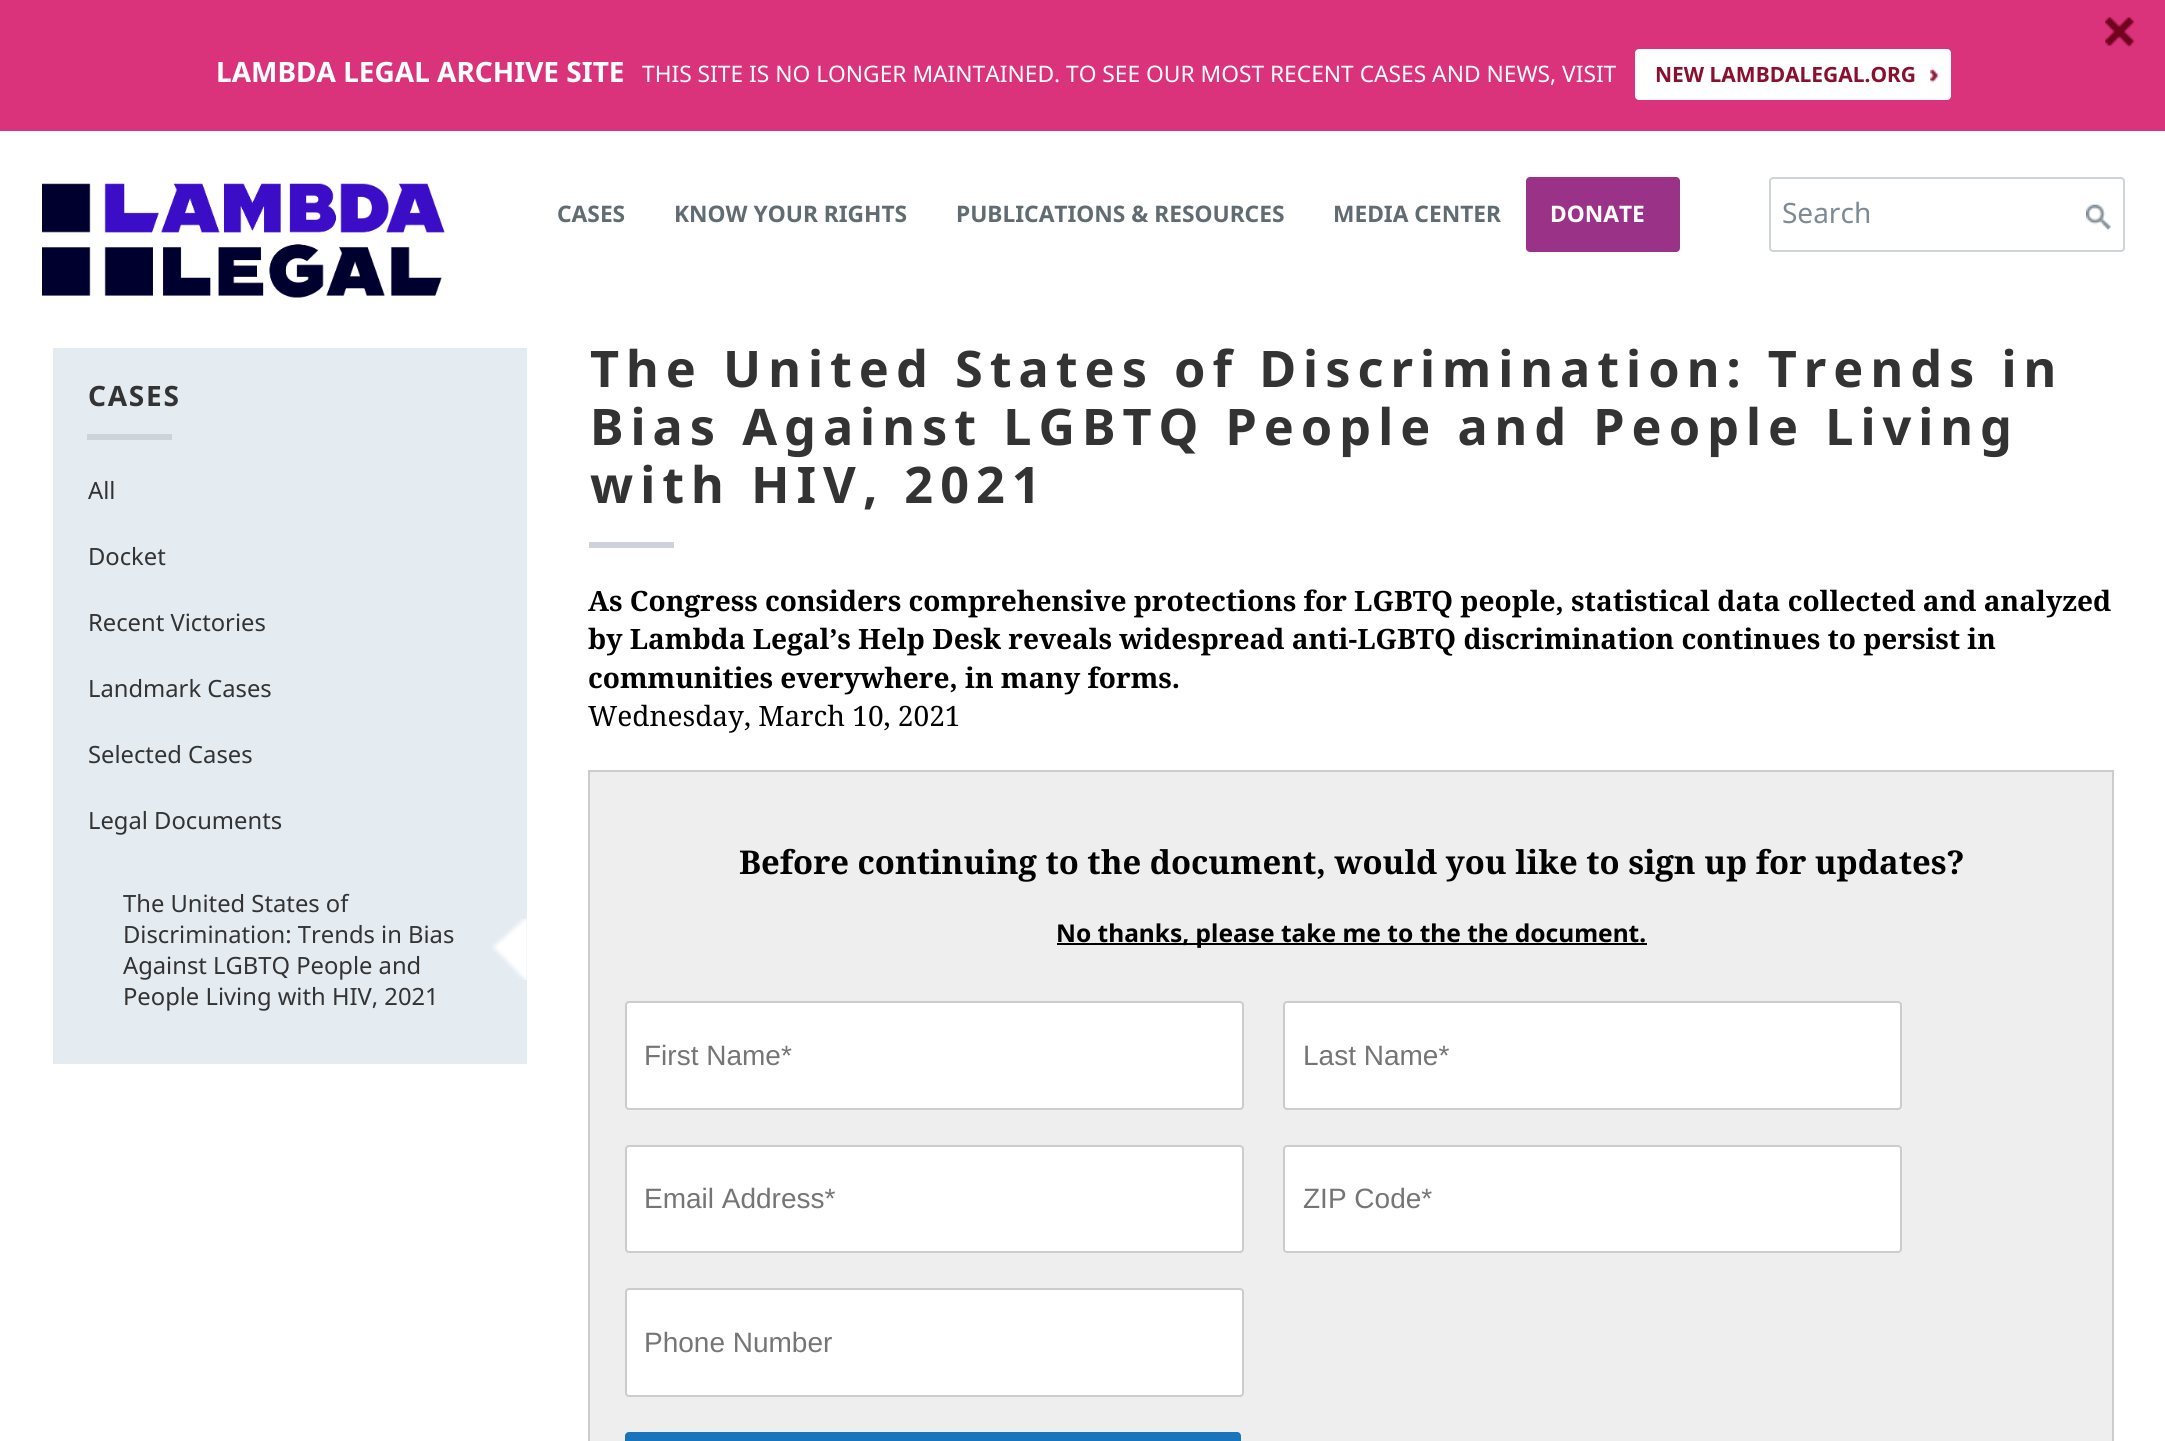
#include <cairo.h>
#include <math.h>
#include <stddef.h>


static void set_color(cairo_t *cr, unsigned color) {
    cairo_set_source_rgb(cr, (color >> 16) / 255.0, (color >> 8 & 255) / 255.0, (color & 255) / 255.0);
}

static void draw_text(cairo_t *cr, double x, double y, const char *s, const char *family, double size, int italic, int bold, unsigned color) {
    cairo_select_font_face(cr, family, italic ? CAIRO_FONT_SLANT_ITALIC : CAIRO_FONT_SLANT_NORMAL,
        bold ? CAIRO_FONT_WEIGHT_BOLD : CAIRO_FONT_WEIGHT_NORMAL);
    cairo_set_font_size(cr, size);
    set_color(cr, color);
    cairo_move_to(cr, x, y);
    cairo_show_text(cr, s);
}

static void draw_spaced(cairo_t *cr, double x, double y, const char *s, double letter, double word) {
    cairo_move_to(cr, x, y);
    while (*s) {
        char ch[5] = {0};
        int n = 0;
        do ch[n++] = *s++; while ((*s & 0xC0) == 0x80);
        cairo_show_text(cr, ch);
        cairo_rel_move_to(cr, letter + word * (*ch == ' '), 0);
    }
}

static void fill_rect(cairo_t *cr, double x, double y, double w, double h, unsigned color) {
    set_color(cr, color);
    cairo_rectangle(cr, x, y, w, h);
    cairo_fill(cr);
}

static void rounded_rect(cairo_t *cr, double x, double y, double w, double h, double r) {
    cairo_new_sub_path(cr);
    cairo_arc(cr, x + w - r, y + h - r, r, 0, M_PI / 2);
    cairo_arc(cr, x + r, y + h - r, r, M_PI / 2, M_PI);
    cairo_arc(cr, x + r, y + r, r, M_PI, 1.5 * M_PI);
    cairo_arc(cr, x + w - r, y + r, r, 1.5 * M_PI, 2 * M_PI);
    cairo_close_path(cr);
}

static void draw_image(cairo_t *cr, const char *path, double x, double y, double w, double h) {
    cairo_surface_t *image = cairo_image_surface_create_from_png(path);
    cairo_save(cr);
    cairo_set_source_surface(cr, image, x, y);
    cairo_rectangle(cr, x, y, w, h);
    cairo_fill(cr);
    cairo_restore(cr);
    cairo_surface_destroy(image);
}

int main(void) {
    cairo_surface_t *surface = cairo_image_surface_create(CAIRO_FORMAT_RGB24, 2165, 1441);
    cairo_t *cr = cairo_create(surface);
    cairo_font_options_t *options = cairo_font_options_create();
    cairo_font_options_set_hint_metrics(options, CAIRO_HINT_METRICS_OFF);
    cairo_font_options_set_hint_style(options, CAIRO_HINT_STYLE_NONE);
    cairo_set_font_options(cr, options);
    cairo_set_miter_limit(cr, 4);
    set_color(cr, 0xFFFFFF);
    cairo_paint(cr);
    fill_rect(cr, 0, 0, 2165, 131, 0xDA337B);
    draw_image(cr, "assets/img1.png", 2105, 17, 30, 31);
    draw_text(cr, 216, 82, "LAMBDA LEGAL ARCHIVE SITE", "Noto Sans", 28, 0, 1, 0xFFFFFF);
    draw_text(cr, 642, 82, "THIS SITE IS NO LONGER MAINTAINED. TO SEE OUR MOST RECENT CASES AND NEWS, VISIT", "Noto Sans", 22.75, 0, 0, 0xFFFFFF);
    rounded_rect(cr, 1635, 49, 316, 51, 4);
    cairo_fill(cr);
    draw_image(cr, "assets/img2.png", 1930, 68, 10, 15);
    draw_text(cr, 1655, 82, "NEW LAMBDALEGAL.ORG", "Noto Sans", 21, 0, 1, 0x8A102F);
    draw_image(cr, "assets/img3.png", 42, 183, 403, 115);
    draw_text(cr, 557, 222, "CASES", "Noto Sans", 22.75, 0, 1, 0x616B72);
    draw_text(cr, 674, 222, "KNOW YOUR RIGHTS", "Noto Sans", 22.75, 0, 1, 0x616B72);
    draw_text(cr, 956, 222, "PUBLICATIONS & RESOURCES", "Noto Sans", 22.75, 0, 1, 0x616B72);
    draw_text(cr, 1333, 222, "MEDIA CENTER", "Noto Sans", 22.75, 0, 1, 0x616B72);
    set_color(cr, 0x9A3388);
    rounded_rect(cr, 1526, 177, 154, 75, 4);
    cairo_fill(cr);
    draw_text(cr, 1550, 222, "DONATE", "Noto Sans", 22.75, 0, 1, 0xFFFFFF);
    rounded_rect(cr, 1770, 178, 354, 73, 3);
    set_color(cr, 0xCED4D9);
    cairo_stroke(cr);
    draw_text(cr, 1782, 223, "Search", "Noto Sans", 28, 0, 0, 0x7D8A93);
    draw_image(cr, "assets/img4.png", 2086, 204, 25, 26);
    fill_rect(cr, 589, 542, 85, 6, 0xCDD3D8);
    cairo_select_font_face(cr, "Noto Sans", CAIRO_FONT_SLANT_NORMAL, CAIRO_FONT_WEIGHT_BOLD);
    cairo_set_font_size(cr, 50.4);
    set_color(cr, 0x333333);
    draw_spaced(cr, 590, 387, "The United States of Discrimination: Trends in", 7, 0);
    draw_spaced(cr, 590, 445, "Bias Against LGBTQ People and People Living", 7, 0);
    draw_spaced(cr, 590, 503, "with HIV, 2021", 7, 0);
    fill_rect(cr, 53, 348, 474, 716, 0xE4EBF1);
    fill_rect(cr, 87, 434, 85, 6, 0xCDD3D8);
    cairo_set_font_size(cr, 28);
    set_color(cr, 0x333333);
    draw_spaced(cr, 88, 406, "CASES", 1.75, 0);
    draw_text(cr, 88, 499, "All", "Noto Sans", 23.75, 0, 0, 0x333333);
    draw_text(cr, 88, 565, "Docket", "Noto Sans", 23.75, 0, 0, 0x333333);
    draw_text(cr, 88, 631, "Recent Victories", "Noto Sans", 23.75, 0, 0, 0x333333);
    draw_text(cr, 88, 697, "Landmark Cases", "Noto Sans", 23.75, 0, 0, 0x333333);
    draw_text(cr, 88, 763, "Selected Cases", "Noto Sans", 23.75, 0, 0, 0x333333);
    draw_text(cr, 88, 829, "Legal Documents", "Noto Sans", 23.75, 0, 0, 0x333333);
    draw_image(cr, "assets/img5.png", 492, 918, 35, 62);
    draw_text(cr, 123, 912, "The United States of", "Noto Sans", 23.75, 0, 0, 0x333333);
    draw_text(cr, 123, 943, "Discrimination: Trends in Bias", "Noto Sans", 23.75, 0, 0, 0x333333);
    draw_text(cr, 123, 974, "Against LGBTQ People and", "Noto Sans", 23.75, 0, 0, 0x333333);
    draw_text(cr, 123, 1005, "People Living with HIV, 2021", "Noto Sans", 23.75, 0, 0, 0x333333);
    draw_text(cr, 588, 611, "As Congress considers comprehensive protections for LGBTQ people, statistical data collected and analyzed", "Noto Serif", 28, 0, 1, 0x000000);
    draw_text(cr, 588, 649, "by Lambda Legal’s Help Desk reveals widespread anti-LGBTQ discrimination continues to persist in", "Noto Serif", 28, 0, 1, 0x000000);
    draw_text(cr, 588, 688, "communities everywhere, in many forms.", "Noto Serif", 28, 0, 1, 0x000000);
    draw_text(cr, 588, 726, "Wednesday, March 10, 2021", "Noto Serif", 28, 0, 0, 0x000000);
    set_color(cr, 0xEEEEEE);
    cairo_rectangle(cr, 589, 771, 1524, 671);
    cairo_fill_preserve(cr);
    set_color(cr, 0xCCCCCC);
    cairo_stroke(cr);
    draw_text(cr, 739, 874, "Before continuing to the document, would you like to sign up for updates?", "Noto Serif", 32.75, 0, 1, 0x000000);
    fill_rect(cr, 1057, 943, 590, 2, 0x000000);
    draw_text(cr, 1056, 942, "No thanks, please take me to the the document.", "Noto Sans", 24.5, 0, 1, 0x000000);
    set_color(cr, 0xFFFFFF);
    rounded_rect(cr, 626, 1002, 617, 107, 3);
    cairo_fill_preserve(cr);
    set_color(cr, 0xCCCCCC);
    cairo_stroke(cr);
    draw_text(cr, 644, 1065, "First Name*", "Liberation Sans", 28, 0, 0, 0x757575);
    set_color(cr, 0xFFFFFF);
    rounded_rect(cr, 1284, 1002, 617, 107, 3);
    cairo_fill_preserve(cr);
    set_color(cr, 0xCCCCCC);
    cairo_stroke(cr);
    draw_text(cr, 1303, 1065, "Last Name*", "Liberation Sans", 28, 0, 0, 0x757575);
    set_color(cr, 0xFFFFFF);
    rounded_rect(cr, 626, 1146, 617, 106, 3);
    cairo_fill_preserve(cr);
    set_color(cr, 0xCCCCCC);
    cairo_stroke(cr);
    draw_text(cr, 644, 1208, "Email Address*", "Liberation Sans", 28, 0, 0, 0x757575);
    set_color(cr, 0xFFFFFF);
    rounded_rect(cr, 1284, 1146, 617, 106, 3);
    cairo_fill_preserve(cr);
    set_color(cr, 0xCCCCCC);
    cairo_stroke(cr);
    draw_text(cr, 1303, 1208, "ZIP Code*", "Liberation Sans", 28, 0, 0, 0x757575);
    set_color(cr, 0xFFFFFF);
    rounded_rect(cr, 626, 1289, 617, 107, 3);
    cairo_fill_preserve(cr);
    set_color(cr, 0xCCCCCC);
    cairo_stroke(cr);
    draw_text(cr, 644, 1352, "Phone Number", "Liberation Sans", 28, 0, 0, 0x757575);
    set_color(cr, 0x1875BB);
    rounded_rect(cr, 625, 1432, 616, 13, 4);
    cairo_fill(cr);
    cairo_surface_write_to_png(surface, "output.png");
    cairo_font_options_destroy(options);
    cairo_destroy(cr);
    cairo_surface_destroy(surface);
    return 0;
}
